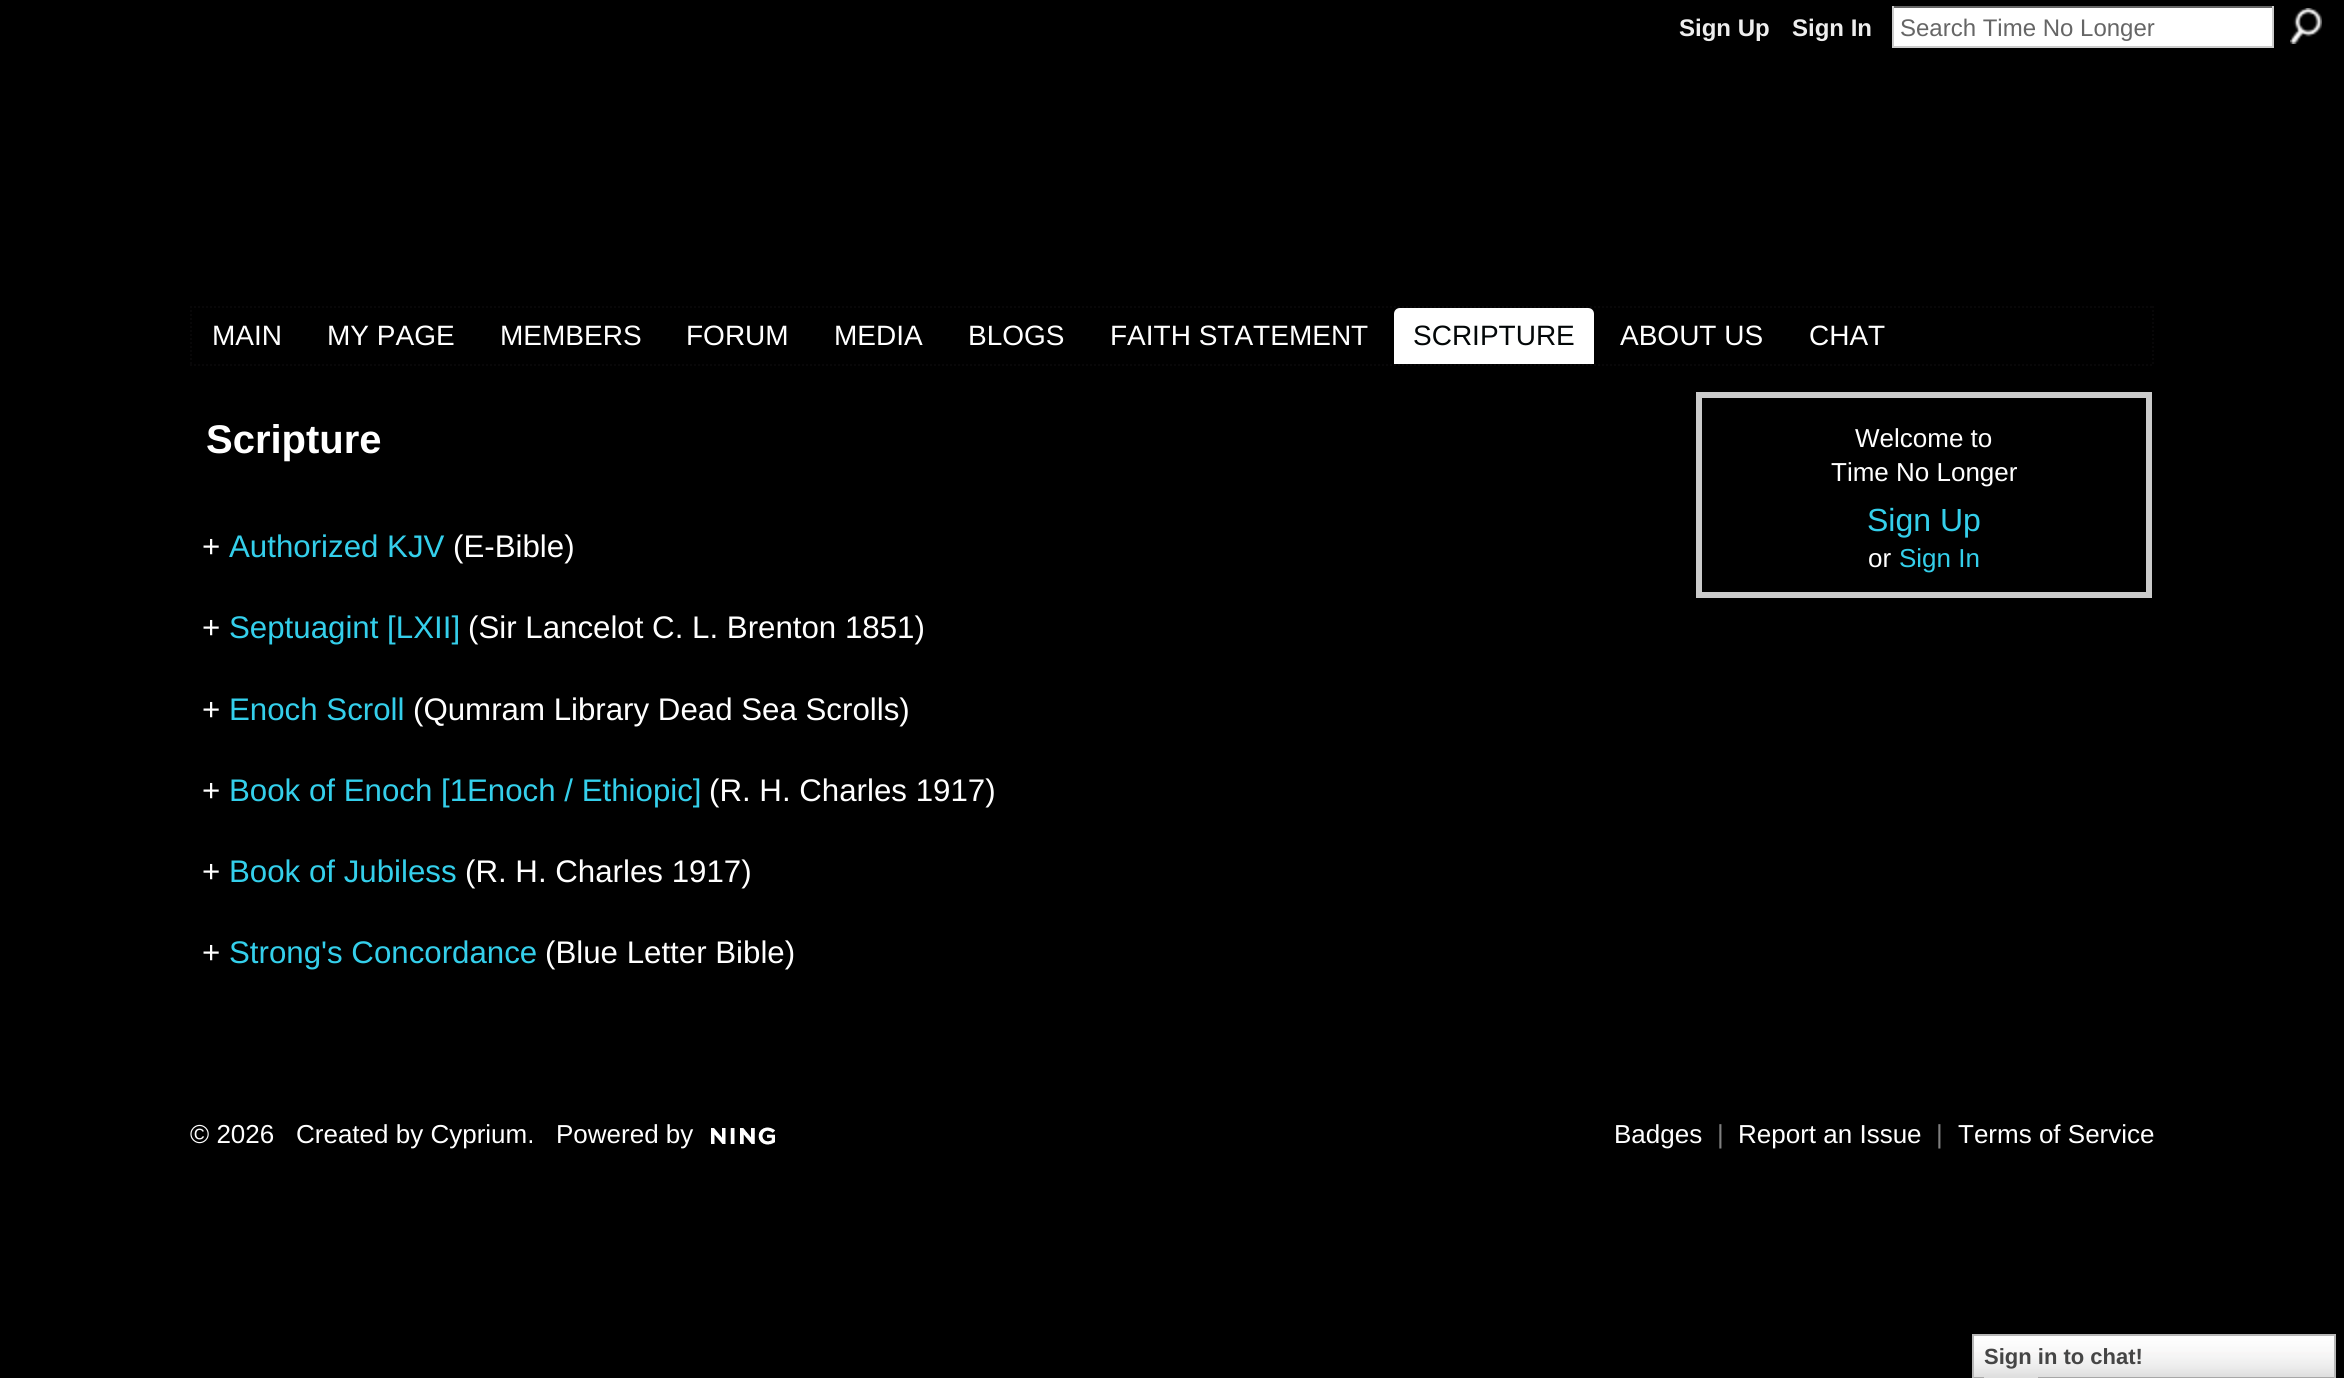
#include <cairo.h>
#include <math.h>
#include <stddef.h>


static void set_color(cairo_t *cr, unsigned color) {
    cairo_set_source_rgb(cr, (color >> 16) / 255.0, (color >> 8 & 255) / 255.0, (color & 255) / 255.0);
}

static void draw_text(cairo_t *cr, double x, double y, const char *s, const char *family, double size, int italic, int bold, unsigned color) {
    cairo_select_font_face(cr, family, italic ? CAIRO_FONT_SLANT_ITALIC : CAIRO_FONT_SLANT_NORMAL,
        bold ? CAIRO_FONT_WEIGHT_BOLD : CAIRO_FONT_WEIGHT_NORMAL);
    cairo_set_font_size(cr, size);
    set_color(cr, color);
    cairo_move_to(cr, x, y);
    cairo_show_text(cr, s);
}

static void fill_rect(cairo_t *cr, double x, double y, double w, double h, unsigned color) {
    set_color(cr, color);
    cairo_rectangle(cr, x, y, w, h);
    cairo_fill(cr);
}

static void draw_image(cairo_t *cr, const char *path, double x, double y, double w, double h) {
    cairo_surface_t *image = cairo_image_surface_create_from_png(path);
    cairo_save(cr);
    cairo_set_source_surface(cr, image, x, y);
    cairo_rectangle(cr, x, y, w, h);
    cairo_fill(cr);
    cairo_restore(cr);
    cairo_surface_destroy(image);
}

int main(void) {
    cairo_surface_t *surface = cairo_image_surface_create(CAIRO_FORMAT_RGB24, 2344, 1378);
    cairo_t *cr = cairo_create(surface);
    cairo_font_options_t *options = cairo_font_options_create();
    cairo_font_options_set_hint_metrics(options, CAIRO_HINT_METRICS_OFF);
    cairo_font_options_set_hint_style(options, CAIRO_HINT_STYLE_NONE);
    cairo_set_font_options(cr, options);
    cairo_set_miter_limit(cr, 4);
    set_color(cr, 0x000000);
    cairo_paint(cr);
    draw_text(cr, 1679, 36, "Sign Up", "Liberation Sans", 24, 0, 1, 0xEEEEEE);
    draw_text(cr, 1792, 36, "Sign In", "Liberation Sans", 24, 0, 1, 0xEEEEEE);
    fill_rect(cr, 1894, 8, 378, 38, 0xFFFFFF);
    fill_rect(cr, 1892, 6, 382, 2, 0x666666);
    fill_rect(cr, 2272, 6, 2, 42, 0xCCCCCC);
    fill_rect(cr, 1892, 46, 382, 2, 0xCCCCCC);
    fill_rect(cr, 1892, 6, 2, 42, 0xCCCCCC);
    draw_text(cr, 1900, 36, "Search Time No Longer", "Liberation Sans", 24, 0, 0, 0x666666);
    draw_image(cr, "assets/img1.png", 2290, 8, 32, 36);
    cairo_new_path(cr);
    cairo_move_to(cr, 190, 307);
    cairo_line_to(cr, 2154, 307);
    set_color(cr, 0x080708);
    cairo_set_dash(cr, (double[]){2, 2}, 2, 0);
    cairo_stroke(cr);
    cairo_new_path(cr);
    cairo_move_to(cr, 2153, 306);
    cairo_line_to(cr, 2153, 366);
    cairo_stroke(cr);
    cairo_new_path(cr);
    cairo_move_to(cr, 190, 365);
    cairo_line_to(cr, 2154, 365);
    cairo_stroke(cr);
    cairo_new_path(cr);
    cairo_move_to(cr, 191, 306);
    cairo_line_to(cr, 191, 366);
    cairo_stroke(cr);
    draw_text(cr, 212, 345, "MAIN", "Liberation Sans", 28, 0, 0, 0xFFFFFF);
    draw_text(cr, 327, 345, "MY PAGE", "Liberation Sans", 28, 0, 0, 0xFFFFFF);
    draw_text(cr, 500, 345, "MEMBERS", "Liberation Sans", 28, 0, 0, 0xFFFFFF);
    draw_text(cr, 686, 345, "FORUM", "Liberation Sans", 28, 0, 0, 0xFFFFFF);
    draw_text(cr, 834, 345, "MEDIA", "Liberation Sans", 28, 0, 0, 0xFFFFFF);
    draw_text(cr, 968, 345, "BLOGS", "Liberation Sans", 28, 0, 0, 0xFFFFFF);
    draw_text(cr, 1110, 345, "FAITH STATEMENT", "Liberation Sans", 28, 0, 0, 0xFFFFFF);
    cairo_new_path(cr);
    cairo_move_to(cr, 1400, 308);
    cairo_line_to(cr, 1588, 308);
    cairo_curve_to(cr, 1591.5, 308, 1594, 310.5, 1594, 314);
    cairo_line_to(cr, 1594, 364);
    cairo_line_to(cr, 1394, 364);
    cairo_line_to(cr, 1394, 314);
    cairo_curve_to(cr, 1394, 310.5, 1396.5, 308, 1400, 308);
    cairo_close_path(cr);
    cairo_fill(cr);
    draw_text(cr, 1413, 345, "SCRIPTURE", "Liberation Sans", 28, 0, 0, 0x030708);
    draw_text(cr, 1620, 345, "ABOUT US", "Liberation Sans", 28, 0, 0, 0xFFFFFF);
    draw_text(cr, 1809, 345, "CHAT", "Liberation Sans", 28, 0, 0, 0xFFFFFF);
    draw_text(cr, 206, 453, "Scripture", "Liberation Sans", 40, 0, 1, 0xFFFFFF);
    draw_text(cr, 202, 557, "+", "Liberation Sans", 31.25, 0, 0, 0xFFFFFF);
    draw_text(cr, 229, 557, "Authorized KJV", "Liberation Sans", 31.25, 0, 0, 0x34CFEB);
    draw_text(cr, 453, 557, "(E-Bible)", "Liberation Sans", 31.25, 0, 0, 0xFFFFFF);
    draw_text(cr, 202, 638, "+", "Liberation Sans", 31.25, 0, 0, 0xFFFFFF);
    draw_text(cr, 229, 638, "Septuagint [LXII]", "Liberation Sans", 31.25, 0, 0, 0x34CFEB);
    draw_text(cr, 468, 638, "(Sir Lancelot C. L. Brenton 1851)", "Liberation Sans", 31.25, 0, 0, 0xFFFFFF);
    draw_text(cr, 202, 720, "+", "Liberation Sans", 31.25, 0, 0, 0xFFFFFF);
    draw_text(cr, 229, 720, "Enoch Scroll", "Liberation Sans", 31.25, 0, 0, 0x34CFEB);
    draw_text(cr, 413, 720, "(Qumram Library Dead Sea Scrolls)", "Liberation Sans", 31.25, 0, 0, 0xFFFFFF);
    draw_text(cr, 202, 801, "+", "Liberation Sans", 31.25, 0, 0, 0xFFFFFF);
    draw_text(cr, 229, 801, "Book of Enoch [1Enoch / Ethiopic]", "Liberation Sans", 31.25, 0, 0, 0x34CFEB);
    draw_text(cr, 709, 801, "(R. H. Charles 1917)", "Liberation Sans", 31.25, 0, 0, 0xFFFFFF);
    draw_text(cr, 202, 882, "+", "Liberation Sans", 31.25, 0, 0, 0xFFFFFF);
    draw_text(cr, 229, 882, "Book of Jubiless", "Liberation Sans", 31.25, 0, 0, 0x34CFEB);
    draw_text(cr, 465, 882, "(R. H. Charles 1917)", "Liberation Sans", 31.25, 0, 0, 0xFFFFFF);
    draw_text(cr, 202, 963, "+", "Liberation Sans", 31.25, 0, 0, 0xFFFFFF);
    draw_text(cr, 229, 963, "Strong's Concordance", "Liberation Sans", 31.25, 0, 0, 0x34CFEB);
    draw_text(cr, 545, 963, "(Blue Letter Bible)", "Liberation Sans", 31.25, 0, 0, 0xFFFFFF);
    cairo_rectangle(cr, 1699, 395, 450, 200);
    set_color(cr, 0xCBCBCB);
    cairo_set_line_width(cr, 6);
    cairo_set_dash(cr, NULL, 0, 0);
    cairo_stroke(cr);
    draw_text(cr, 1855, 447, "Welcome to", "Liberation Sans", 26, 0, 0, 0xFFFFFF);
    draw_text(cr, 1831, 481, "Time No Longer", "Liberation Sans", 26, 0, 0, 0xFFFFFF);
    draw_text(cr, 1867, 531, "Sign Up", "Liberation Sans", 32, 0, 0, 0x34CFEB);
    draw_text(cr, 1868, 567, "or", "Liberation Sans", 26, 0, 0, 0xFFFFFF);
    draw_text(cr, 1899, 567, "Sign In", "Liberation Sans", 26, 0, 0, 0x34CFEB);
    draw_text(cr, 190, 1143, "© 2026", "Liberation Sans", 26, 0, 0, 0xFFFFFF);
    draw_text(cr, 296, 1143, "Created by Cyprium.", "Liberation Sans", 26, 0, 0, 0xFFFFFF);
    draw_text(cr, 556, 1143, "Powered by", "Liberation Sans", 26, 0, 0, 0xFFFFFF);
    draw_image(cr, "assets/img2.png", 711, 1127, 64, 18);
    draw_text(cr, 1614, 1143, "Badges", "Liberation Sans", 26, 0, 0, 0xFFFFFF);
    draw_text(cr, 1717, 1143, "|", "Liberation Sans", 26, 0, 0, 0x7F7F7F);
    draw_text(cr, 1738, 1143, "Report an Issue", "Liberation Sans", 26, 0, 0, 0xFFFFFF);
    draw_text(cr, 1936, 1143, "|", "Liberation Sans", 26, 0, 0, 0x7F7F7F);
    draw_text(cr, 1958, 1143, "Terms of Service", "Liberation Sans", 26, 0, 0, 0xFFFFFF);
    draw_image(cr, "assets/img3.png", 1974, 1336, 360, 42);
    cairo_rectangle(cr, 1973, 1335, 362, 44);
    set_color(cr, 0xB7B7B7);
    cairo_set_line_width(cr, 2);
    cairo_stroke(cr);
    fill_rect(cr, 1984, 1377, 54, 1, 0xDEDEDE);
    draw_text(cr, 1984, 1364, "Sign in to chat!", "Liberation Sans", 22, 0, 1, 0x454545);
    cairo_surface_write_to_png(surface, "output.png");
    cairo_font_options_destroy(options);
    cairo_destroy(cr);
    cairo_surface_destroy(surface);
    return 0;
}
